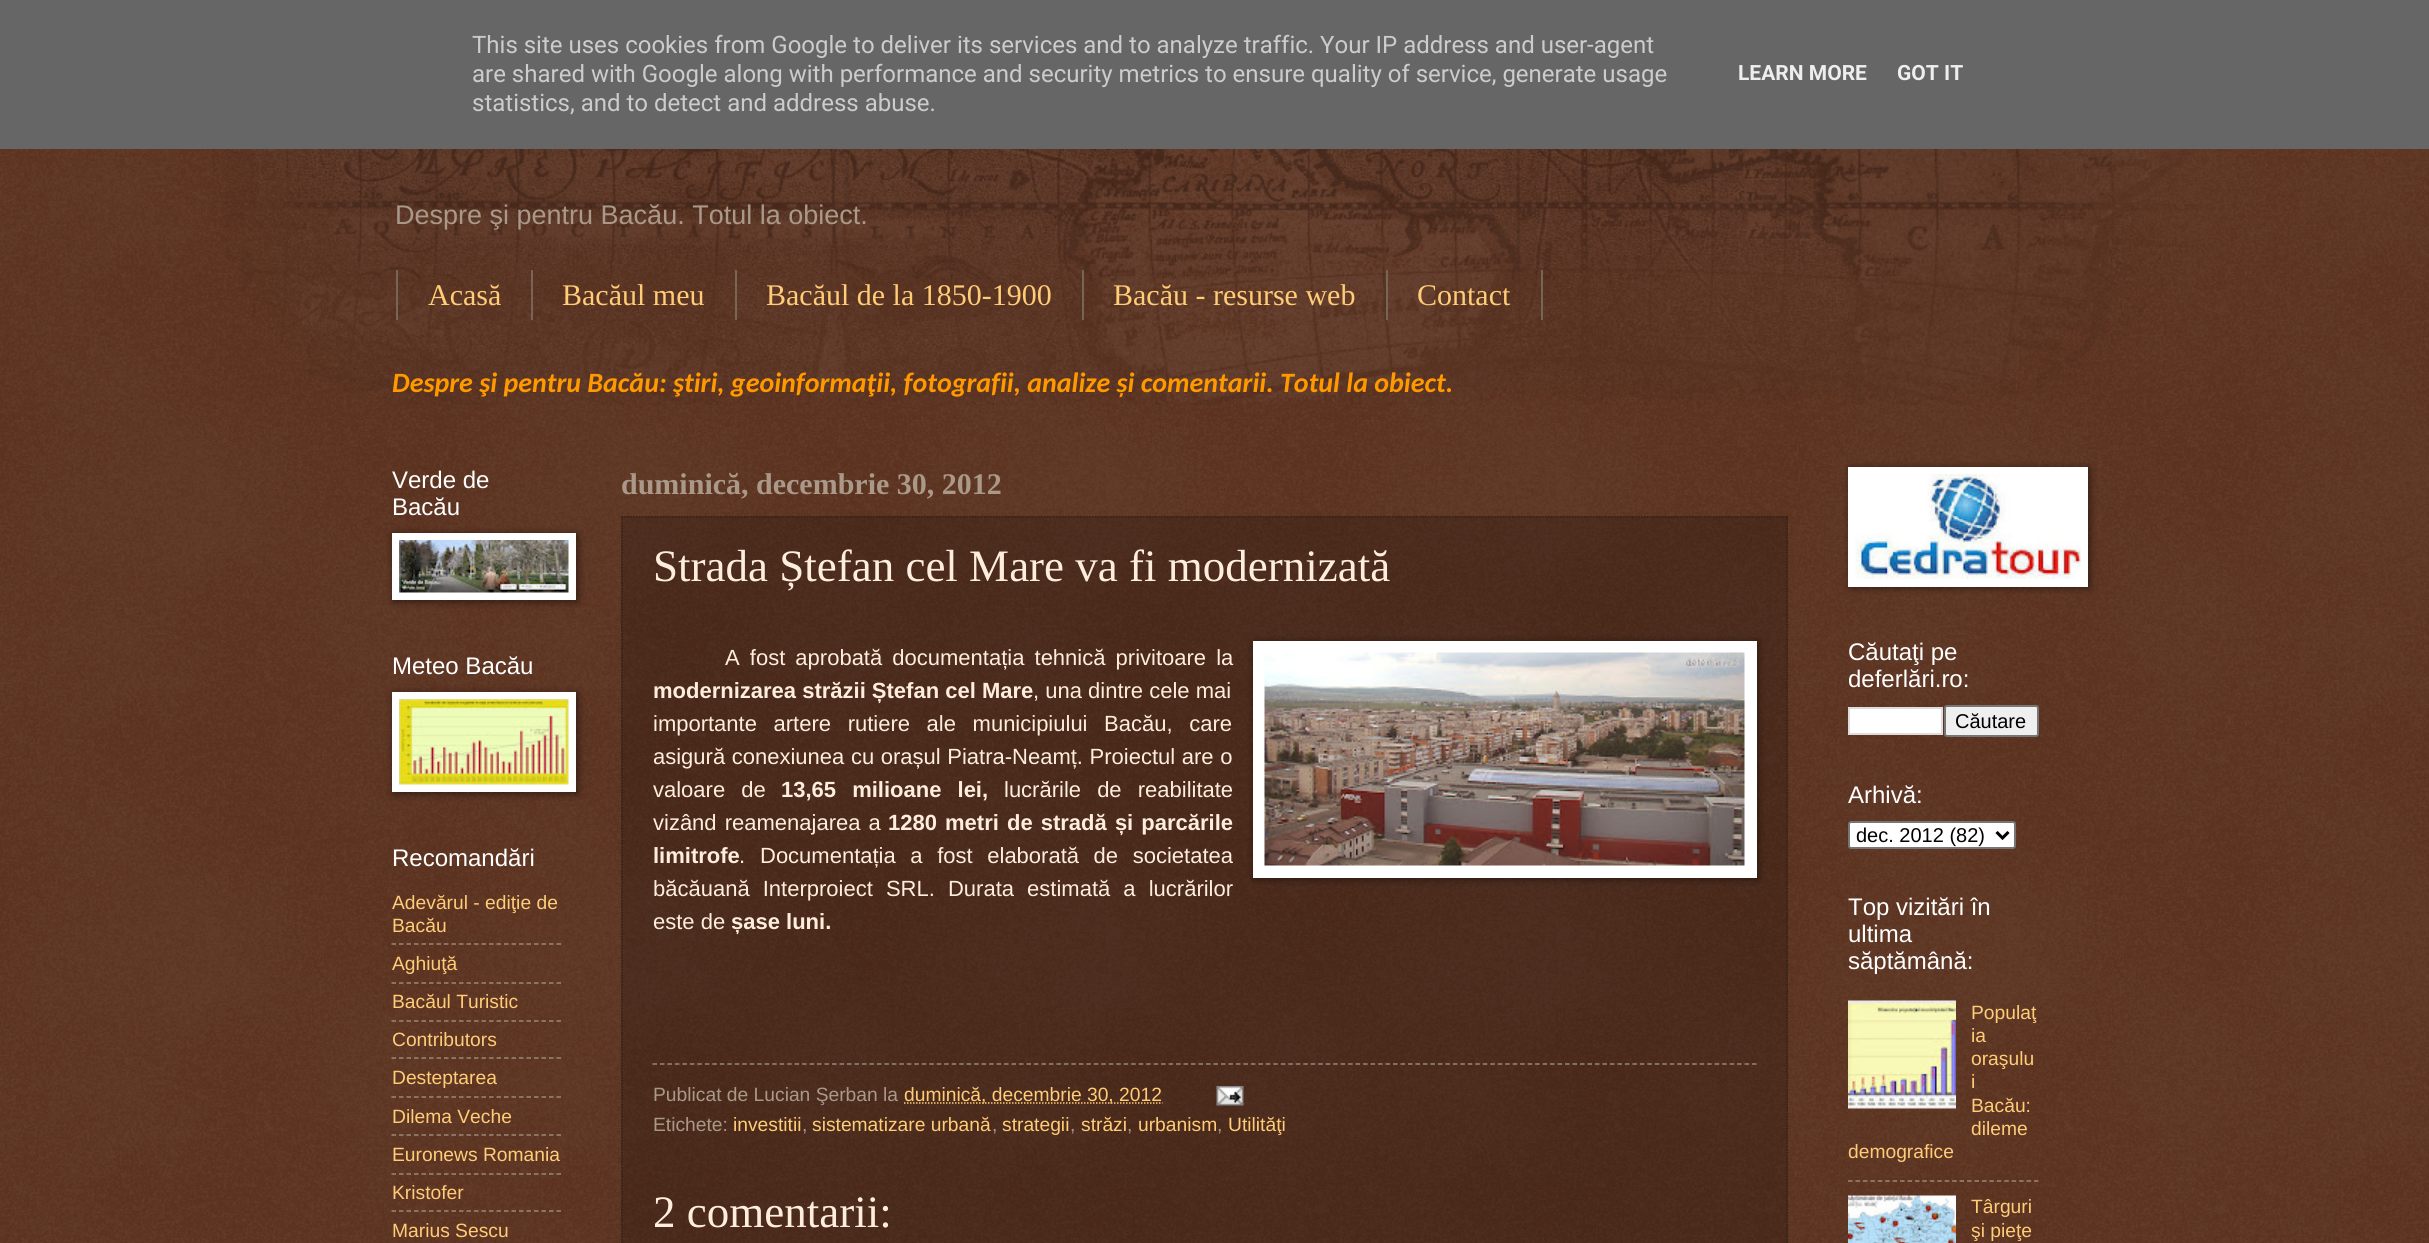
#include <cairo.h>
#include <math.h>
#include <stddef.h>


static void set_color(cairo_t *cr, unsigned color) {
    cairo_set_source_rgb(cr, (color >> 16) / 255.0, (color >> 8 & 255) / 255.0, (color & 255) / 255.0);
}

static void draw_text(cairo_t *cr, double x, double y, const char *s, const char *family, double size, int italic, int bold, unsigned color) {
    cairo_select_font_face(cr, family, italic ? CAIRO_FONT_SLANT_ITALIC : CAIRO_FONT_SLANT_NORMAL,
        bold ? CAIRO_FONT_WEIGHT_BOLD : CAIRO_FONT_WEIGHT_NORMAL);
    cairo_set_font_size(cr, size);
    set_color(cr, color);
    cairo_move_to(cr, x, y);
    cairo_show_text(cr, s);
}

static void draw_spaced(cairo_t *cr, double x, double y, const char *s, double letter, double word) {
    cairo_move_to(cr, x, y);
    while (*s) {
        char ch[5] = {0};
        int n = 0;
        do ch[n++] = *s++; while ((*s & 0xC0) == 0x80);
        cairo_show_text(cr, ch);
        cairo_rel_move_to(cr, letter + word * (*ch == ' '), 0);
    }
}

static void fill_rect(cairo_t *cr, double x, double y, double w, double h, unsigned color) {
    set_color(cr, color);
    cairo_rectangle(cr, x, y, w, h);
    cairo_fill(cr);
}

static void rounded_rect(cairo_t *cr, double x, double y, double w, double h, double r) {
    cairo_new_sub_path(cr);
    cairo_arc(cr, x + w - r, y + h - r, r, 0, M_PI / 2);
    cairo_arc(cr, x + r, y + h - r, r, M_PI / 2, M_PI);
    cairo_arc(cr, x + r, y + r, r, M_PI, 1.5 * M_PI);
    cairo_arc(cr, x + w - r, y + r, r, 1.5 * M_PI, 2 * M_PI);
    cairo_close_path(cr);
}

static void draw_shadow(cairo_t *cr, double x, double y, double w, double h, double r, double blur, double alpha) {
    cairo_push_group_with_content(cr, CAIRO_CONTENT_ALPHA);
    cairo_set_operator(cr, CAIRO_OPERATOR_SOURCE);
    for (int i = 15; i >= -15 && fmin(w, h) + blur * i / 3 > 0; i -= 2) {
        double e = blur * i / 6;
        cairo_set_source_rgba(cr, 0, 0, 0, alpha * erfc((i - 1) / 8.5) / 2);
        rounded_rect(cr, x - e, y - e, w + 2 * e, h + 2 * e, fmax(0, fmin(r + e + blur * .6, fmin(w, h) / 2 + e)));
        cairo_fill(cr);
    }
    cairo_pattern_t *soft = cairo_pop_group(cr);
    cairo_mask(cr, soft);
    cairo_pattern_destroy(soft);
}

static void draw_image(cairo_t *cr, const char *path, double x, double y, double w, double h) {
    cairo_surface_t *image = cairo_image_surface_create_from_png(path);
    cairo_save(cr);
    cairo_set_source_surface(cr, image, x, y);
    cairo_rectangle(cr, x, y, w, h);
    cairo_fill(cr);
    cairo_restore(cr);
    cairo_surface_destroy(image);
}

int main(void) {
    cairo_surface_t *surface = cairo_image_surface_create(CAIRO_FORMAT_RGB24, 2429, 1243);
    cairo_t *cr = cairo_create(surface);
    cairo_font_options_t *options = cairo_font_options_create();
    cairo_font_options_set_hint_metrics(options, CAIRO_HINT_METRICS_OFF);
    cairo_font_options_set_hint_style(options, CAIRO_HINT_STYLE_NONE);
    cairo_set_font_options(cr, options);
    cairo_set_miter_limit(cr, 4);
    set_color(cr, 0x441500);
    cairo_paint(cr);
    draw_image(cr, "assets/img1.png", 0, 149, 2429, 1094);
    fill_rect(cr, 0, 0, 2429, 149, 0x666666);
    draw_text(cr, 472, 53, "This site uses cookies from Google to deliver its services and to analyze traffic. Your IP address and user-agent", "Roboto", 24, 0, 0, 0xCCCCCC);
    draw_text(cr, 472, 82, "are shared with Google along with performance and security metrics to ensure quality of service, generate usage", "Roboto", 24, 0, 0, 0xCCCCCC);
    draw_text(cr, 472, 111, "statistics, and to detect and address abuse.", "Roboto", 24, 0, 0, 0xCCCCCC);
    draw_text(cr, 1738, 80, "LEARN MORE", "Roboto", 21, 0, 1, 0xEEEEEE);
    draw_text(cr, 1897, 80, "GOT IT", "Roboto", 21, 0, 1, 0xEEEEEE);
    draw_image(cr, "assets/img2.png", 208, 149, 2012, 256);
    draw_text(cr, 395, 224, "Despre şi pentru Bacău. Totul la obiect.", "Liberation Sans", 27, 0, 0, 0xAA9988);
    fill_rect(cr, 531, 270, 2, 50, 0x776655);
    fill_rect(cr, 396, 270, 2, 50, 0x776655);
    draw_text(cr, 428, 305, "Acasă", "Liberation Serif", 30, 0, 0, 0xFFCC77);
    fill_rect(cr, 735, 270, 2, 50, 0x776655);
    draw_text(cr, 562, 305, "Bacăul meu", "Liberation Serif", 30, 0, 0, 0xFFCC77);
    fill_rect(cr, 1082, 270, 2, 50, 0x776655);
    draw_text(cr, 766, 305, "Bacăul de la 1850-1900", "Liberation Serif", 30, 0, 0, 0xFFCC77);
    fill_rect(cr, 1386, 270, 2, 50, 0x776655);
    draw_text(cr, 1113, 305, "Bacău - resurse web", "Liberation Serif", 30, 0, 0, 0xFFCC77);
    fill_rect(cr, 1541, 270, 2, 50, 0x776655);
    draw_text(cr, 1417, 305, "Contact", "Liberation Serif", 30, 0, 0, 0xFFCC77);
    draw_text(cr, 392, 392, "Despre şi pentru Bacău: ştiri, geoinformaţii, fotografii, analize și comentarii. Totul la obiect.", "Carlito", 28, 1, 1, 0xFF9900);
    draw_text(cr, 392, 488, "Verde de", "Arimo", 24, 0, 0, 0xFFFFFF);
    draw_text(cr, 392, 515, "Bacău", "Arimo", 24, 0, 0, 0xFFFFFF);
    set_color(cr, 0x000000);
    draw_shadow(cr, 393, 534, 185, 68, 0, 4, 0.5);
    fill_rect(cr, 392, 533, 184, 67, 0xFFFFFF);
    draw_image(cr, "assets/img3.png", 399, 540, 170, 53);
    draw_text(cr, 392, 674, "Meteo Bacău", "Arimo", 24, 0, 0, 0xFFFFFF);
    set_color(cr, 0x000000);
    draw_shadow(cr, 393, 693, 185, 101, 0, 4, 0.5);
    fill_rect(cr, 392, 692, 184, 100, 0xFFFFFF);
    draw_image(cr, "assets/img4.png", 399, 699, 170, 86);
    draw_text(cr, 392, 866, "Recomandări", "Arimo", 24, 0, 0, 0xFFFFFF);
    draw_text(cr, 392, 909, "Adevărul - ediţie de", "Liberation Sans", 19.25, 0, 0, 0xFFCC77);
    draw_text(cr, 392, 932, "Bacău", "Liberation Sans", 19.25, 0, 0, 0xFFCC77);
    cairo_new_path(cr);
    cairo_move_to(cr, 391.5, 944);
    cairo_line_to(cr, 561, 944);
    set_color(cr, 0x998877);
    cairo_set_line_width(cr, 1.5);
    cairo_set_dash(cr, (double[]){4.5, 3}, 2, 0);
    cairo_stroke(cr);
    draw_text(cr, 392, 970, "Aghiuţă", "Liberation Sans", 19.25, 0, 0, 0xFFCC77);
    cairo_new_path(cr);
    cairo_move_to(cr, 391.5, 983);
    cairo_line_to(cr, 561, 983);
    set_color(cr, 0x998877);
    cairo_stroke(cr);
    draw_text(cr, 392, 1008, "Bacăul Turistic", "Liberation Sans", 19.25, 0, 0, 0xFFCC77);
    cairo_new_path(cr);
    cairo_move_to(cr, 391.5, 1021);
    cairo_line_to(cr, 561, 1021);
    set_color(cr, 0x998877);
    cairo_stroke(cr);
    draw_text(cr, 392, 1046, "Contributors", "Liberation Sans", 19.25, 0, 0, 0xFFCC77);
    cairo_new_path(cr);
    cairo_move_to(cr, 391.5, 1058);
    cairo_line_to(cr, 561, 1058);
    set_color(cr, 0x998877);
    cairo_stroke(cr);
    draw_text(cr, 392, 1084, "Desteptarea", "Liberation Sans", 19.25, 0, 0, 0xFFCC77);
    cairo_new_path(cr);
    cairo_move_to(cr, 391.5, 1097);
    cairo_line_to(cr, 561, 1097);
    set_color(cr, 0x998877);
    cairo_stroke(cr);
    draw_text(cr, 392, 1123, "Dilema Veche", "Liberation Sans", 19.25, 0, 0, 0xFFCC77);
    cairo_new_path(cr);
    cairo_move_to(cr, 391.5, 1135);
    cairo_line_to(cr, 561, 1135);
    set_color(cr, 0x998877);
    cairo_stroke(cr);
    draw_text(cr, 392, 1161, "Euronews Romania", "Liberation Sans", 19.25, 0, 0, 0xFFCC77);
    cairo_new_path(cr);
    cairo_move_to(cr, 391.5, 1174);
    cairo_line_to(cr, 561, 1174);
    set_color(cr, 0x998877);
    cairo_stroke(cr);
    draw_text(cr, 392, 1199, "Kristofer", "Liberation Sans", 19.25, 0, 0, 0xFFCC77);
    cairo_new_path(cr);
    cairo_move_to(cr, 391.5, 1211);
    cairo_line_to(cr, 561, 1211);
    set_color(cr, 0x998877);
    cairo_stroke(cr);
    draw_text(cr, 392, 1237, "Marius Sescu", "Liberation Sans", 19.25, 0, 0, 0xFFCC77);
    draw_text(cr, 621, 494, "duminică, decembrie 30, 2012", "Liberation Serif", 30, 0, 1, 0xAA9988);
    cairo_set_source_rgba(cr, 0, 0, 0, 0.2);
    cairo_rectangle(cr, 621, 516, 1167, 727);
    cairo_fill(cr);
    cairo_new_path(cr);
    cairo_move_to(cr, 621, 517);
    cairo_line_to(cr, 1788, 517);
    set_color(cr, 0x332211);
    cairo_set_dash(cr, (double[]){1.5, 1.5}, 2, 0);
    cairo_stroke(cr);
    cairo_new_path(cr);
    cairo_move_to(cr, 1787, 516);
    cairo_line_to(cr, 1787, 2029.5);
    cairo_stroke(cr);
    cairo_new_path(cr);
    cairo_move_to(cr, 622, 516);
    cairo_line_to(cr, 622, 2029.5);
    cairo_stroke(cr);
    draw_text(cr, 653, 581, "Strada Ștefan cel Mare va fi modernizată", "Liberation Serif", 45, 0, 0, 0xFFEEDD);
    cairo_select_font_face(cr, "Liberation Sans", CAIRO_FONT_SLANT_NORMAL, CAIRO_FONT_WEIGHT_NORMAL);
    cairo_set_font_size(cr, 22);
    draw_spaced(cr, 725, 665, "A fost aprobată documentația tehnică privitoare la", 0, 4);
    draw_text(cr, 653, 698, "modernizarea străzii Ștefan cel Mare", "Liberation Sans", 22, 0, 1, 0xFFEEDD);
    draw_text(cr, 1033, 698, ", una dintre cele mai", "Liberation Sans", 22, 0, 0, 0xFFEEDD);
    draw_spaced(cr, 653, 731, "importante artere rutiere ale municipiului Bacău, care", 0, 10.5);
    draw_spaced(cr, 653, 764, "asigură conexiunea cu orașul Piatra-Neamț. Proiectul are o", 0, 0.5);
    draw_spaced(cr, 653, 797, "valoare de", 0, 10);
    cairo_select_font_face(cr, "Liberation Sans", CAIRO_FONT_SLANT_NORMAL, CAIRO_FONT_WEIGHT_BOLD);
    draw_spaced(cr, 781, 797, "13,65 milioane lei,", 0, 10);
    cairo_select_font_face(cr, "Liberation Sans", CAIRO_FONT_SLANT_NORMAL, CAIRO_FONT_WEIGHT_NORMAL);
    draw_spaced(cr, 1004, 797, "lucrările de reabilitate", 0, 10);
    draw_spaced(cr, 653, 830, "vizând reamenajarea a", 0, 2);
    cairo_select_font_face(cr, "Liberation Sans", CAIRO_FONT_SLANT_NORMAL, CAIRO_FONT_WEIGHT_BOLD);
    draw_spaced(cr, 888, 830, "1280 metri de stradă și parcările", 0, 2);
    draw_text(cr, 653, 863, "limitrofe", "Liberation Sans", 22, 0, 1, 0xFFEEDD);
    draw_text(cr, 739, 863, ".", "Liberation Sans", 22, 0, 0, 0xFFEEDD);
    draw_spaced(cr, 760, 863, "Documentația a fost elaborată de societatea", 0, 8.5);
    draw_spaced(cr, 653, 896, "băcăuană Interproiect SRL. Durata estimată a lucrărilor", 0, 7);
    draw_text(cr, 653, 929, "este de", "Liberation Sans", 22, 0, 0, 0xFFEEDD);
    draw_text(cr, 731, 929, "șase luni.", "Liberation Sans", 22, 0, 1, 0xFFEEDD);
    set_color(cr, 0x000000);
    draw_shadow(cr, 1254, 642, 504, 237, 0, 4, 0.5);
    fill_rect(cr, 1253, 641, 504, 237, 0xFFFFFF);
    draw_image(cr, "assets/img5.png", 1264, 652, 481, 214);
    cairo_new_path(cr);
    cairo_move_to(cr, 652.5, 1064);
    cairo_line_to(cr, 1756.5, 1064);
    set_color(cr, 0x998877);
    cairo_set_dash(cr, (double[]){4.5, 2.98}, 2, 0);
    cairo_stroke(cr);
    draw_text(cr, 653, 1101, "Publicat de Lucian Şerban la", "Liberation Sans", 19.25, 0, 0, 0xAA9988);
    cairo_new_path(cr);
    cairo_move_to(cr, 904, 1103);
    cairo_line_to(cr, 1162.5, 1103);
    set_color(cr, 0xFFCC77);
    cairo_set_dash(cr, (double[]){1.5, 1.5}, 2, 0);
    cairo_stroke(cr);
    draw_text(cr, 904, 1101, "duminică, decembrie 30, 2012", "Liberation Sans", 19.25, 0, 0, 0xFFCC77);
    draw_image(cr, "assets/img6.png", 1216, 1086, 28, 20);
    draw_text(cr, 653, 1131, "Etichete:", "Liberation Sans", 19.25, 0, 0, 0xAA9988);
    draw_text(cr, 733, 1131, "investitii", "Liberation Sans", 19.25, 0, 0, 0xFFCC77);
    draw_text(cr, 802, 1131, ",", "Liberation Sans", 19.25, 0, 0, 0xAA9988);
    draw_text(cr, 812, 1131, "sistematizare urbană", "Liberation Sans", 19.25, 0, 0, 0xFFCC77);
    draw_text(cr, 992, 1131, ",", "Liberation Sans", 19.25, 0, 0, 0xAA9988);
    draw_text(cr, 1002, 1131, "strategii", "Liberation Sans", 19.25, 0, 0, 0xFFCC77);
    draw_text(cr, 1070, 1131, ",", "Liberation Sans", 19.25, 0, 0, 0xAA9988);
    draw_text(cr, 1081, 1131, "străzi", "Liberation Sans", 19.25, 0, 0, 0xFFCC77);
    draw_text(cr, 1127, 1131, ",", "Liberation Sans", 19.25, 0, 0, 0xAA9988);
    draw_text(cr, 1138, 1131, "urbanism", "Liberation Sans", 19.25, 0, 0, 0xFFCC77);
    draw_text(cr, 1217, 1131, ",", "Liberation Sans", 19.25, 0, 0, 0xAA9988);
    draw_text(cr, 1228, 1131, "Utilităţi", "Liberation Sans", 19.25, 0, 0, 0xFFCC77);
    draw_text(cr, 653, 1227, "2 comentarii:", "Liberation Serif", 45, 0, 0, 0xFFEEDD);
    set_color(cr, 0x000000);
    draw_shadow(cr, 1850, 468, 240, 120, 0, 4, 0.5);
    fill_rect(cr, 1848, 467, 240, 120, 0xFFFFFF);
    draw_image(cr, "assets/img7.png", 1855, 474, 226, 105);
    draw_text(cr, 1848, 660, "Căutaţi pe", "Arimo", 24, 0, 0, 0xFFFFFF);
    draw_text(cr, 1848, 687, "deferlări.ro:", "Arimo", 24, 0, 0, 0xFFFFFF);
    cairo_rectangle(cr, 1849, 708, 93, 26);
    cairo_fill_preserve(cr);
    set_color(cr, 0xDDDDDD);
    cairo_set_line_width(cr, 2);
    cairo_set_dash(cr, NULL, 0, 0);
    cairo_stroke(cr);
    set_color(cr, 0xEFEFEF);
    rounded_rect(cr, 1945, 706, 93, 30, 2);
    cairo_fill_preserve(cr);
    set_color(cr, 0x767676);
    cairo_stroke(cr);
    draw_text(cr, 1955, 728, "Căutare", "Liberation Sans", 20, 0, 0, 0x000000);
    draw_text(cr, 1848, 803, "Arhivă:", "Arimo", 24, 0, 0, 0xFFFFFF);
    rounded_rect(cr, 1849, 822, 166, 26, 2);
    cairo_fill_preserve(cr);
    set_color(cr, 0x767676);
    cairo_stroke(cr);
    cairo_new_path(cr);
    cairo_move_to(cr, 1996.5, 832);
    cairo_line_to(cr, 2002.5, 838);
    cairo_line_to(cr, 2008.5, 832);
    set_color(cr, 0x000000);
    cairo_set_line_width(cr, 3);
    cairo_stroke(cr);
    draw_text(cr, 1856, 842, "dec. 2012 (82)", "Liberation Sans", 20, 0, 0, 0x000000);
    draw_text(cr, 1848, 915, "Top vizitări în", "Arimo", 24, 0, 0, 0xFFFFFF);
    draw_text(cr, 1848, 942, "ultima", "Arimo", 24, 0, 0, 0xFFFFFF);
    draw_text(cr, 1848, 969, "săptămână:", "Arimo", 24, 0, 0, 0xFFFFFF);
    draw_image(cr, "assets/img8.png", 1848, 1000, 108, 109);
    draw_text(cr, 1971, 1019, "Populaţ", "Liberation Sans", 19.25, 0, 0, 0xFFCC77);
    draw_text(cr, 1971, 1042, "ia", "Liberation Sans", 19.25, 0, 0, 0xFFCC77);
    draw_text(cr, 1971, 1065, "oraşulu", "Liberation Sans", 19.25, 0, 0, 0xFFCC77);
    draw_text(cr, 1971, 1088, "i", "Liberation Sans", 19.25, 0, 0, 0xFFCC77);
    draw_text(cr, 1971, 1112, "Bacău:", "Liberation Sans", 19.25, 0, 0, 0xFFCC77);
    draw_text(cr, 1971, 1135, "dileme", "Liberation Sans", 19.25, 0, 0, 0xFFCC77);
    draw_text(cr, 1848, 1158, "demografice", "Liberation Sans", 19.25, 0, 0, 0xFFCC77);
    cairo_new_path(cr);
    cairo_move_to(cr, 1848, 1181);
    cairo_line_to(cr, 2038.5, 1181);
    set_color(cr, 0x998877);
    cairo_set_line_width(cr, 1.5);
    cairo_set_dash(cr, (double[]){4.5, 2.94}, 2, 0);
    cairo_stroke(cr);
    draw_image(cr, "assets/img9.png", 1848, 1195, 108, 48);
    draw_text(cr, 1971, 1213, "Târguri", "Liberation Sans", 19.25, 0, 0, 0xFFCC77);
    draw_text(cr, 1971, 1237, "şi pieţe", "Liberation Sans", 19.25, 0, 0, 0xFFCC77);
    cairo_surface_write_to_png(surface, "output.png");
    cairo_font_options_destroy(options);
    cairo_destroy(cr);
    cairo_surface_destroy(surface);
    return 0;
}
